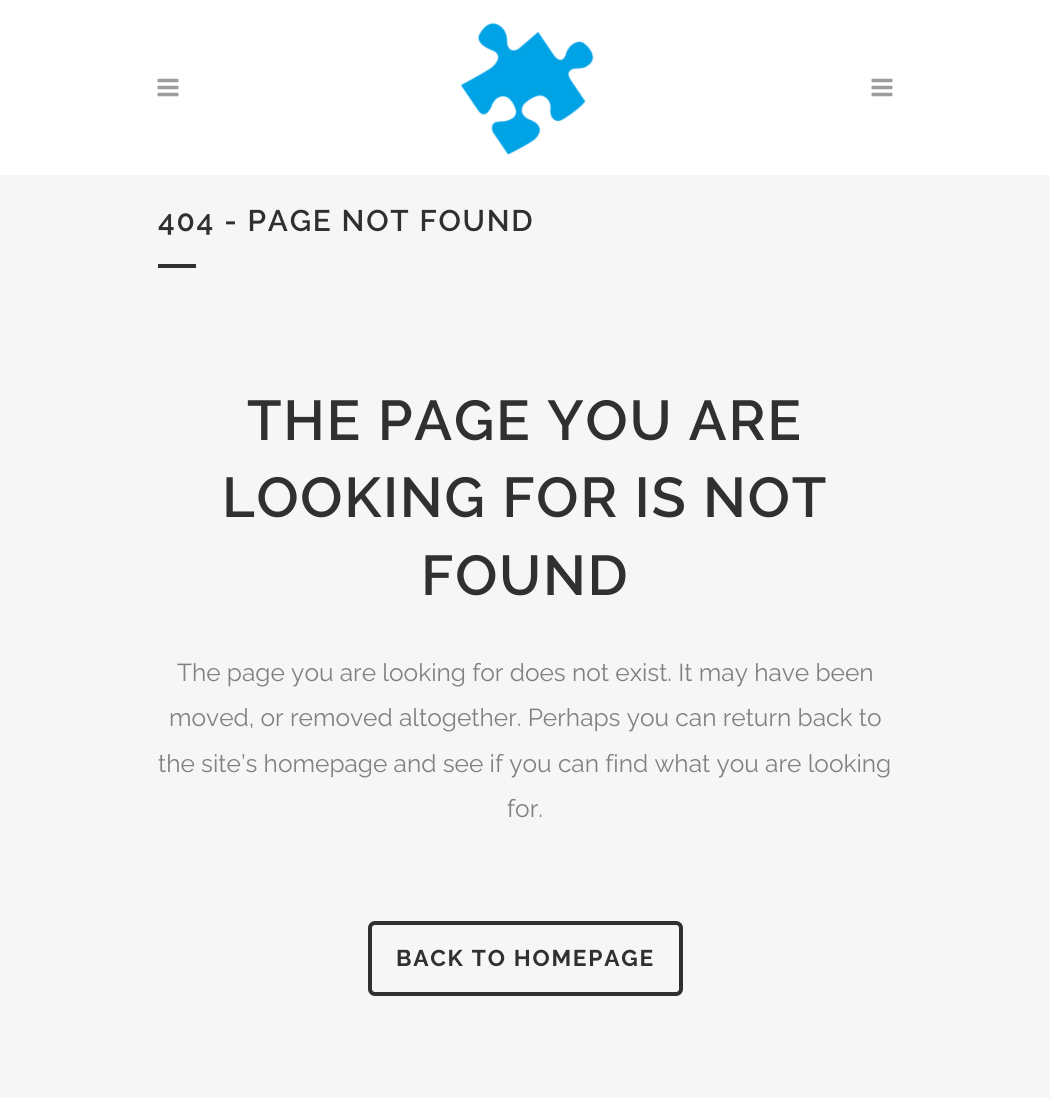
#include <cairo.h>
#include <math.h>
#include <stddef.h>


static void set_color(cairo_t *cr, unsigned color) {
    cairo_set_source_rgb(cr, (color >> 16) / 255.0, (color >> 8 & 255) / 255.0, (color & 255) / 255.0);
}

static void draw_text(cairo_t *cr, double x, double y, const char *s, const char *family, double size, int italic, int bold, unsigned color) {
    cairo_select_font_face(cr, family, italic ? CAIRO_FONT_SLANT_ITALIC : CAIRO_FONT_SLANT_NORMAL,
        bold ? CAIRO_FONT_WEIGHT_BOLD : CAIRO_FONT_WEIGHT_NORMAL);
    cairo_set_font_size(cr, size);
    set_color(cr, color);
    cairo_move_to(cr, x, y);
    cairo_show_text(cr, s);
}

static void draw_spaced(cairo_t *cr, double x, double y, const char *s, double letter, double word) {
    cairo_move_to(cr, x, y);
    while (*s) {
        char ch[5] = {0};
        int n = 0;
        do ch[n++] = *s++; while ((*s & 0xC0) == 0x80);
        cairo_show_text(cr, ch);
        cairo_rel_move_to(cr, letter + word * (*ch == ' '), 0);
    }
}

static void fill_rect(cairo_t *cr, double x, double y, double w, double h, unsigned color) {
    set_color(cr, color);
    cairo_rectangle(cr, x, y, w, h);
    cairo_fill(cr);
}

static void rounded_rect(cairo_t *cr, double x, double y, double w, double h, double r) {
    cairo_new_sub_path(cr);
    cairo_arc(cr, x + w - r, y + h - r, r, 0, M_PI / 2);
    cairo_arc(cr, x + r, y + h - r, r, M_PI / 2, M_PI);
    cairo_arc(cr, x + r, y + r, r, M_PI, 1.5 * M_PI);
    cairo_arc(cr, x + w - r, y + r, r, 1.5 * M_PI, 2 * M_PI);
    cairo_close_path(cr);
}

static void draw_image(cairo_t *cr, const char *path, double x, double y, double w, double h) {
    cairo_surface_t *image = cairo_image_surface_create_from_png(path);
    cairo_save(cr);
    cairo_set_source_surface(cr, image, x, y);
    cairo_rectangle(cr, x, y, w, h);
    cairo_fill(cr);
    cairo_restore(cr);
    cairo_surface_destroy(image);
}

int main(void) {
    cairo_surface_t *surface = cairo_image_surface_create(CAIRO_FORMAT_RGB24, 1050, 1098);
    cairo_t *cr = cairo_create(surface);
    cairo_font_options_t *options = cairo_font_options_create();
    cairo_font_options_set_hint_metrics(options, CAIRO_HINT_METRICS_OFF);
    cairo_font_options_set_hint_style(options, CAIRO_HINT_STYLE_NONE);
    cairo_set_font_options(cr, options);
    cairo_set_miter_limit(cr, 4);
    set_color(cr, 0xF6F6F6);
    cairo_paint(cr);
    fill_rect(cr, 0, 0, 1050, 175, 0xFFFFFF);
    draw_image(cr, "assets/img1.png", 157, 78, 22, 19);
    draw_image(cr, "assets/img2.png", 460, 22, 134, 133);
    draw_image(cr, "assets/img1.png", 871, 78, 22, 19);
    cairo_select_font_face(cr, "Raleway SemiBold", CAIRO_FONT_SLANT_NORMAL, CAIRO_FONT_WEIGHT_NORMAL);
    cairo_set_font_size(cr, 29.75);
    set_color(cr, 0x303030);
    draw_spaced(cr, 158, 231, "404 - PAGE NOT FOUND", 1.75, 0);
    fill_rect(cr, 158, 264, 38, 4, 0x303030);
    cairo_set_font_size(cr, 56);
    draw_spaced(cr, 247, 440, "THE PAGE YOU ARE", 1.75, 0);
    draw_spaced(cr, 222, 517, "LOOKING FOR IS NOT", 1.75, 0);
    draw_spaced(cr, 421, 595, "FOUND", 1.75, 0);
    draw_text(cr, 177, 681, "The page you are looking for does not exist. It may have been", "Raleway", 24.5, 0, 0, 0x818181);
    draw_text(cr, 169, 726, "moved, or removed altogether. Perhaps you can return back to", "Raleway", 24.5, 0, 0, 0x818181);
    draw_text(cr, 158, 772, "the site’s homepage and see if you can find what you are looking", "Raleway", 24.5, 0, 0, 0x818181);
    draw_text(cr, 507, 817, "for.", "Raleway", 24.5, 0, 0, 0x818181);
    rounded_rect(cr, 370, 923, 311, 71, 5);
    set_color(cr, 0x303030);
    cairo_set_line_width(cr, 4);
    cairo_stroke(cr);
    cairo_select_font_face(cr, "Raleway", CAIRO_FONT_SLANT_NORMAL, CAIRO_FONT_WEIGHT_BOLD);
    cairo_set_font_size(cr, 22.75);
    draw_spaced(cr, 396, 966, "BACK TO HOMEPAGE", 1.75, 0);
    cairo_surface_write_to_png(surface, "output.png");
    cairo_font_options_destroy(options);
    cairo_destroy(cr);
    cairo_surface_destroy(surface);
    return 0;
}
